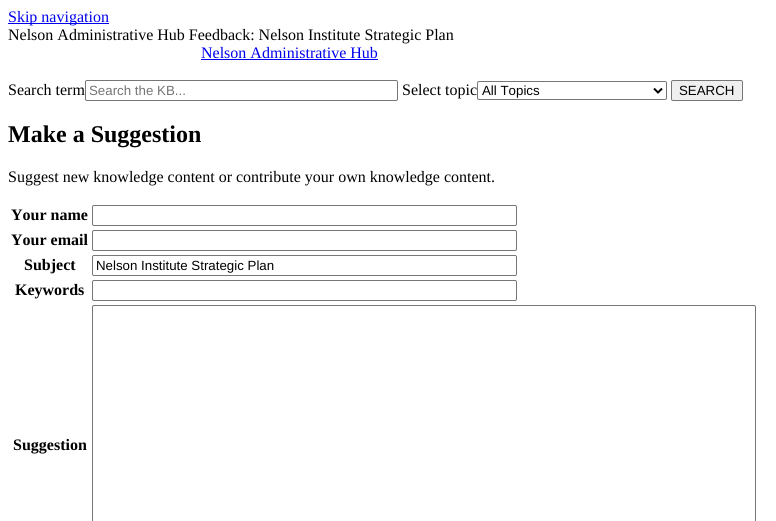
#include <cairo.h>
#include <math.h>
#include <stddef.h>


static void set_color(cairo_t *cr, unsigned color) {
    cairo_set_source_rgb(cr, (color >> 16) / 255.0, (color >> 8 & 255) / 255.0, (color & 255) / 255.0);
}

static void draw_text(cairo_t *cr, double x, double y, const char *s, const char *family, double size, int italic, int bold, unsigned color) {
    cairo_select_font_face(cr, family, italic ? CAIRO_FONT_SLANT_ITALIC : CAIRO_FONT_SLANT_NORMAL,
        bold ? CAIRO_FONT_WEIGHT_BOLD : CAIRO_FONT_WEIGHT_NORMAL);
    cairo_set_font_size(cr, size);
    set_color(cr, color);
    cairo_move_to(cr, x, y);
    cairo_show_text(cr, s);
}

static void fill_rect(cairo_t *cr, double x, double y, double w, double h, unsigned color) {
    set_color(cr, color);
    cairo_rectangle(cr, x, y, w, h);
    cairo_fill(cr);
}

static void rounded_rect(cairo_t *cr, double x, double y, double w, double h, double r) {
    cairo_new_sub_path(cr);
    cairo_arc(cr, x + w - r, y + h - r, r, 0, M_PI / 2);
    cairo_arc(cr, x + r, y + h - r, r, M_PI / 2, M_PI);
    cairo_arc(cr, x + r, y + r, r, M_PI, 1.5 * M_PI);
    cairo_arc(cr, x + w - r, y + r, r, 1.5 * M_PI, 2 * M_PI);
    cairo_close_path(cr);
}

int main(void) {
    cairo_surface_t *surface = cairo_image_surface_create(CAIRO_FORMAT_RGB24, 776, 521);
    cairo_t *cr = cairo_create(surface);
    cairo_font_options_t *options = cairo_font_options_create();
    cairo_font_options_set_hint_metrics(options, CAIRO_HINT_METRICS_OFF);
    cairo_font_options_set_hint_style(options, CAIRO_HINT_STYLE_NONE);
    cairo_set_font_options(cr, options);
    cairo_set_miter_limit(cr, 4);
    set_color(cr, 0xFFFFFF);
    cairo_paint(cr);
    fill_rect(cr, 8, 23, 101, 1, 0x0000EE);
    draw_text(cr, 8, 22, "Skip navigation", "Liberation Serif", 16, 0, 0, 0x0000EE);
    draw_text(cr, 8, 40, "Nelson Administrative Hub Feedback: Nelson Institute Strategic Plan", "Liberation Serif", 16, 0, 0, 0x000000);
    draw_text(cr, 201, 58, "Nelson Administrative Hub", "Liberation Serif", 16, 0, 0, 0x0000EE);
    fill_rect(cr, 201, 59, 177, 1, 0x0000EE);
    draw_text(cr, 8, 95, "Search term", "Liberation Serif", 16, 0, 0, 0x000000);
    rounded_rect(cr, 85.5, 80.5, 312, 20, 1.5);
    set_color(cr, 0x767676);
    cairo_set_line_width(cr, 1);
    cairo_stroke(cr);
    draw_text(cr, 89, 95, "Search the KB...", "Liberation Sans", 13.3, 0, 0, 0x757575);
    draw_text(cr, 402, 95, "Select topic", "Liberation Serif", 16, 0, 0, 0x000000);
    rounded_rect(cr, 477.5, 81.5, 189, 18, 1.5);
    set_color(cr, 0x767676);
    cairo_stroke(cr);
    cairo_new_path(cr);
    cairo_move_to(cr, 654, 88.5);
    cairo_line_to(cr, 658, 92.5);
    cairo_line_to(cr, 662, 88.5);
    set_color(cr, 0x000000);
    cairo_set_line_width(cr, 2);
    cairo_stroke(cr);
    draw_text(cr, 482, 95, "All Topics", "Liberation Sans", 13.3, 0, 0, 0x000000);
    set_color(cr, 0xEFEFEF);
    rounded_rect(cr, 671.5, 80.5, 71, 20, 1.5);
    cairo_fill_preserve(cr);
    set_color(cr, 0x767676);
    cairo_set_line_width(cr, 1);
    cairo_stroke(cr);
    draw_text(cr, 679, 95, "SEARCH", "Liberation Sans", 13.3, 0, 0, 0x000000);
    draw_text(cr, 8, 142, "Make a Suggestion", "Liberation Serif", 24, 0, 1, 0x000000);
    draw_text(cr, 8, 182, "Suggest new knowledge content or contribute your own knowledge content.", "Liberation Serif", 16, 0, 0, 0x000000);
    draw_text(cr, 11, 220, "Your name", "Liberation Serif", 16, 0, 1, 0x000000);
    rounded_rect(cr, 92.5, 205.5, 424, 20, 1.5);
    set_color(cr, 0x767676);
    cairo_stroke(cr);
    draw_text(cr, 11, 245, "Your email", "Liberation Serif", 16, 0, 1, 0x000000);
    rounded_rect(cr, 92.5, 230.5, 424, 20, 1.5);
    set_color(cr, 0x767676);
    cairo_stroke(cr);
    draw_text(cr, 24, 270, "Subject", "Liberation Serif", 16, 0, 1, 0x000000);
    rounded_rect(cr, 92.5, 255.5, 424, 20, 1.5);
    set_color(cr, 0x767676);
    cairo_stroke(cr);
    draw_text(cr, 96, 270, "Nelson Institute Strategic Plan", "Liberation Sans", 13.3, 0, 0, 0x000000);
    draw_text(cr, 15, 295, "Keywords", "Liberation Serif", 16, 0, 1, 0x000000);
    rounded_rect(cr, 92.5, 280.5, 424, 20, 1.5);
    set_color(cr, 0x767676);
    cairo_stroke(cr);
    draw_text(cr, 13, 450, "Suggestion", "Liberation Serif", 16, 0, 1, 0x000000);
    rounded_rect(cr, 92.5, 305.5, 663, 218, 1.5);
    set_color(cr, 0x767676);
    cairo_stroke(cr);
    cairo_surface_write_to_png(surface, "output.png");
    cairo_font_options_destroy(options);
    cairo_destroy(cr);
    cairo_surface_destroy(surface);
    return 0;
}
